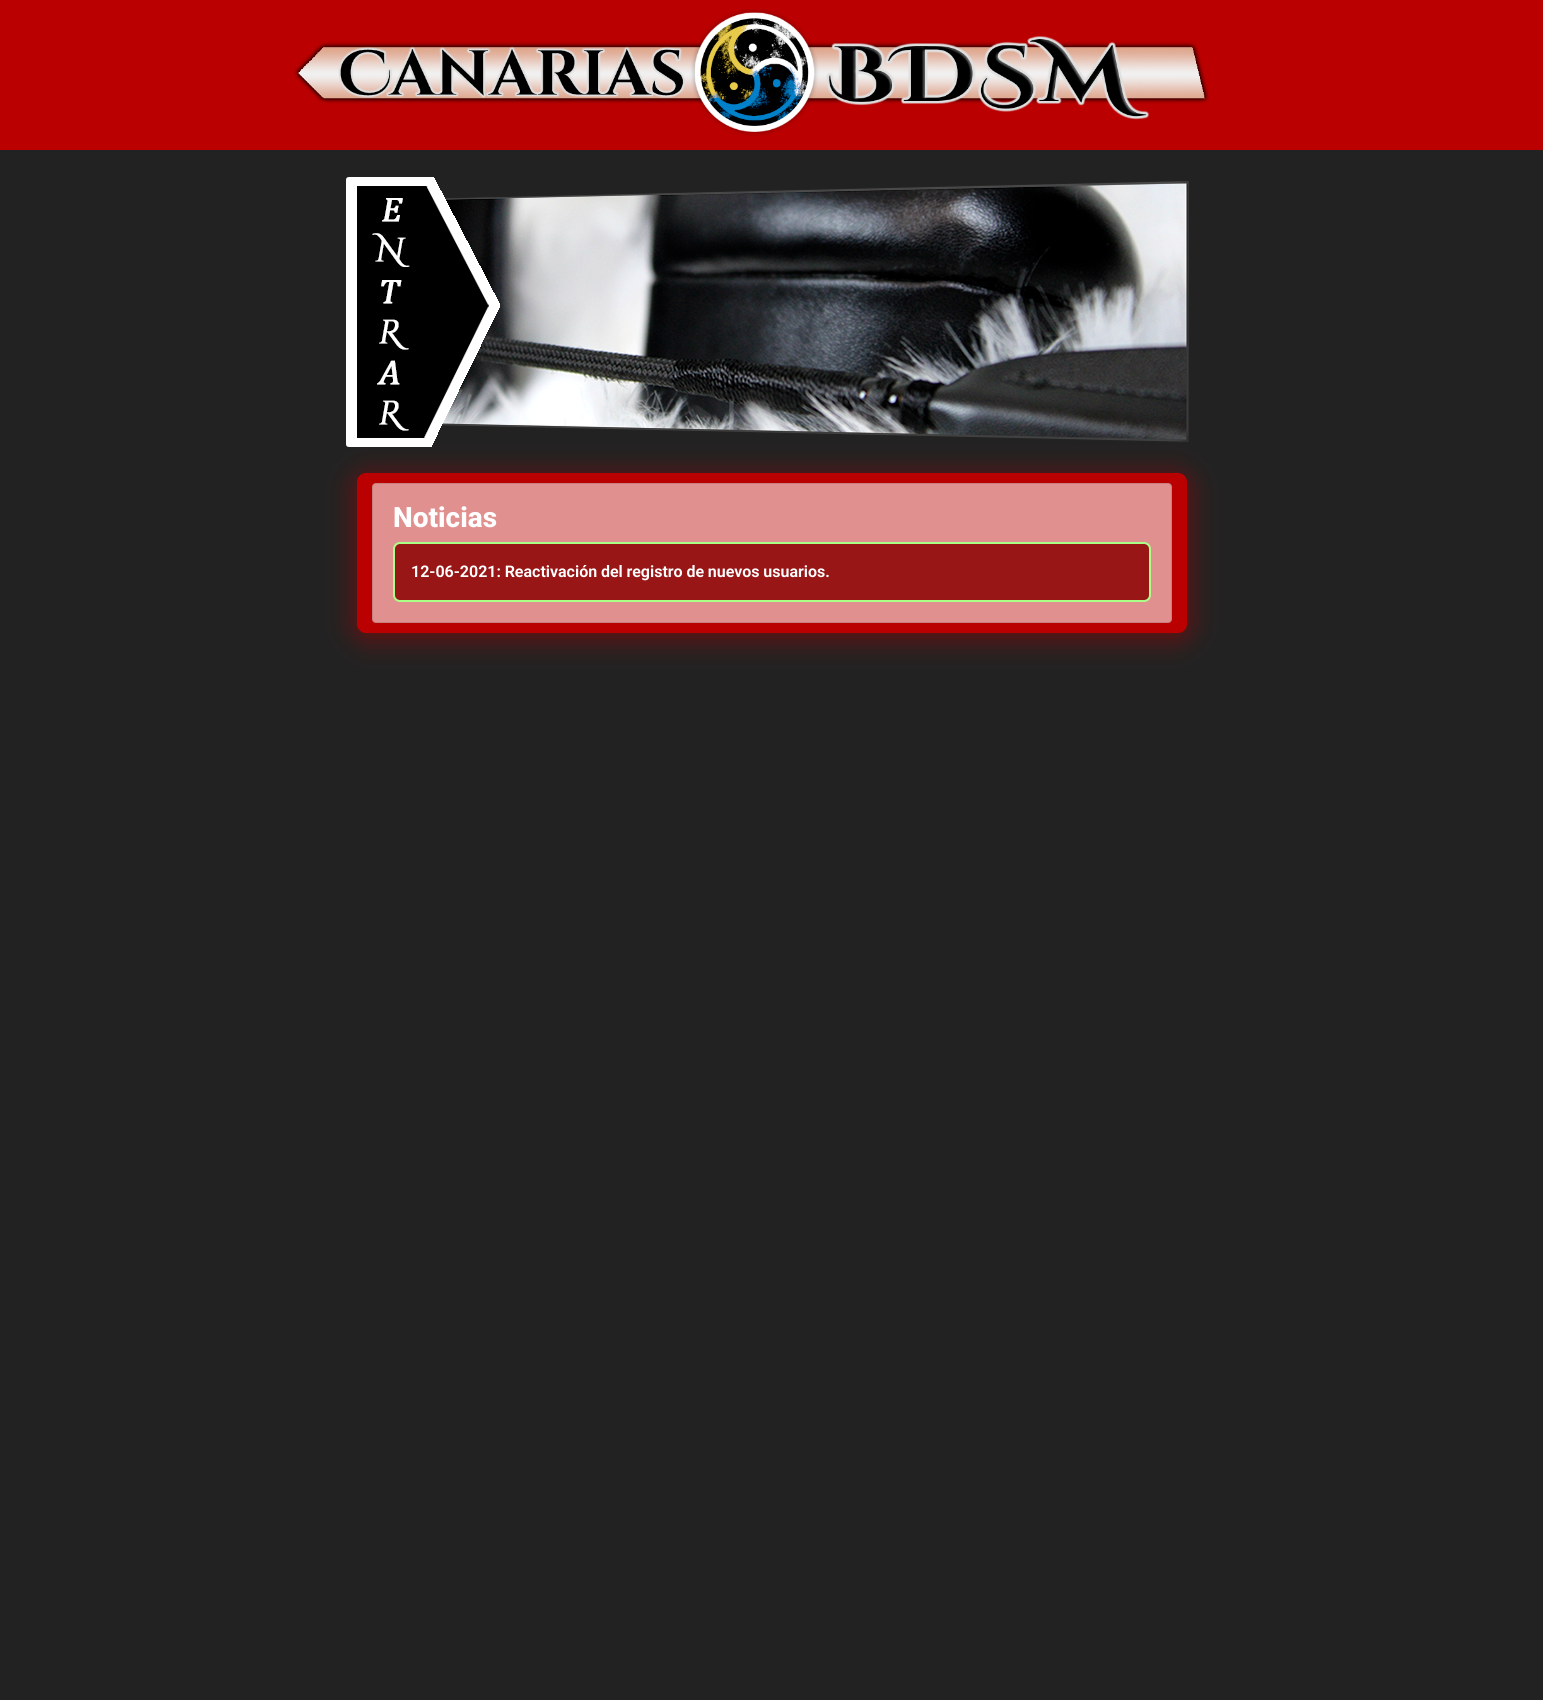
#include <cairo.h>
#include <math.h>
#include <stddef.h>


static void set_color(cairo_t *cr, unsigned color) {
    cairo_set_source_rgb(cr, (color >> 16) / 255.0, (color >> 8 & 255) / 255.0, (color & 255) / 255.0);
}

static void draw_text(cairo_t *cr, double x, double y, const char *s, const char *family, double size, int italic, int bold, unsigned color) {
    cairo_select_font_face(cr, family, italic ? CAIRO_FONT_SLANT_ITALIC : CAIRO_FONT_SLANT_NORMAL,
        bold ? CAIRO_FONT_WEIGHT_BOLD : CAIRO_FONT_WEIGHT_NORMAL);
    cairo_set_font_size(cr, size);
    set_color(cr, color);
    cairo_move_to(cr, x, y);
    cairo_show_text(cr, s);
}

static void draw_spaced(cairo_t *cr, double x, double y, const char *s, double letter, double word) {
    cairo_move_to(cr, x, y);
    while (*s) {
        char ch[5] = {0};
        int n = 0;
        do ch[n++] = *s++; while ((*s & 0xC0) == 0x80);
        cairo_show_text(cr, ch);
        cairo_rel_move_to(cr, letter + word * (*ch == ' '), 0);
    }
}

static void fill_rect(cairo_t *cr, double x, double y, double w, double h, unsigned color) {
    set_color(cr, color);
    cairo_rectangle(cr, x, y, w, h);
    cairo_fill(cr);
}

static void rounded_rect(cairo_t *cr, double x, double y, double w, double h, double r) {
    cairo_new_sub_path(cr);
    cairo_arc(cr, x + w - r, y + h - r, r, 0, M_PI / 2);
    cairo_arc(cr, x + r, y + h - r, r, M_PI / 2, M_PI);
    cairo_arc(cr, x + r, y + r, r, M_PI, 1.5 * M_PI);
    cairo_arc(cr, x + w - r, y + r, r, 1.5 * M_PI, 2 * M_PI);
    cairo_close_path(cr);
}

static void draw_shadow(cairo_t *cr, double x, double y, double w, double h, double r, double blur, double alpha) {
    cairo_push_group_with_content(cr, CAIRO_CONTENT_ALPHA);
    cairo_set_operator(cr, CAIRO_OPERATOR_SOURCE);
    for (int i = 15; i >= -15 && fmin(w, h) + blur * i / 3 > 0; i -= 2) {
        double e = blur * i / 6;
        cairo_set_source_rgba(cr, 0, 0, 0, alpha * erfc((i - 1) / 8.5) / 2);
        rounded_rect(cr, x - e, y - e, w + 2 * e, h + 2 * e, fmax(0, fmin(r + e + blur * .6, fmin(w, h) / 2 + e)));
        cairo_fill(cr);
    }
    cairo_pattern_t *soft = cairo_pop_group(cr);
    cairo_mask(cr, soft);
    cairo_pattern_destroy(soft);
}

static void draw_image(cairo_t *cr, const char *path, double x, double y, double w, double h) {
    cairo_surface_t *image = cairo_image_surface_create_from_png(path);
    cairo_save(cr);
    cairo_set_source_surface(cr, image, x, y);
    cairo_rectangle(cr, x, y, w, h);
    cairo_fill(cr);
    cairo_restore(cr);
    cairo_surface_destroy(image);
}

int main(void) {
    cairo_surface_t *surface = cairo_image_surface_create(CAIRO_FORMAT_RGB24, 1543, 1700);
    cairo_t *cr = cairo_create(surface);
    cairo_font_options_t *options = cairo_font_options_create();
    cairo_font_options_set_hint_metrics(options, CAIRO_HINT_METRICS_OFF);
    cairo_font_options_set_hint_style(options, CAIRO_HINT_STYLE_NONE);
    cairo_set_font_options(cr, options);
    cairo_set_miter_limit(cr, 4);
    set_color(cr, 0x222222);
    cairo_paint(cr);
    fill_rect(cr, 0, 0, 1543, 150, 0xBA0000);
    draw_image(cr, "assets/img1.png", 294, 9, 915, 127);
    set_color(cr, 0xAC0000);
    draw_shadow(cr, 357, 477, 830, 160, 9, 15, 0.6);
    draw_image(cr, "assets/img2.png", 346, 177, 843, 270);
    set_color(cr, 0xBA0000);
    rounded_rect(cr, 357, 473, 830, 160, 9);
    cairo_fill(cr);
    set_color(cr, 0xE19090);
    rounded_rect(cr, 372, 483, 800, 140, 4);
    cairo_fill(cr);
    rounded_rect(cr, 372.5, 483.5, 799, 139, 3.5);
    cairo_set_source_rgba(cr, 0, 0, 0, 0.12);
    cairo_set_line_width(cr, 1);
    cairo_stroke(cr);
    draw_text(cr, 393, 527, "Noticias", "Roboto ExtraBold", 28, 0, 0, 0xFFFFFF);
    set_color(cr, 0x981616);
    rounded_rect(cr, 394, 543, 756, 58, 6);
    cairo_fill_preserve(cr);
    set_color(cr, 0xAAFF88);
    cairo_set_line_width(cr, 2);
    cairo_stroke(cr);
    cairo_select_font_face(cr, "Roboto SemiBold", CAIRO_FONT_SLANT_NORMAL, CAIRO_FONT_WEIGHT_NORMAL);
    cairo_set_font_size(cr, 16);
    set_color(cr, 0xFFFFFF);
    draw_spaced(cr, 411, 577, "12-06-2021: Reactivación del registro de nuevos usuarios.", 0, -0.25);
    cairo_surface_write_to_png(surface, "output.png");
    cairo_font_options_destroy(options);
    cairo_destroy(cr);
    cairo_surface_destroy(surface);
    return 0;
}
